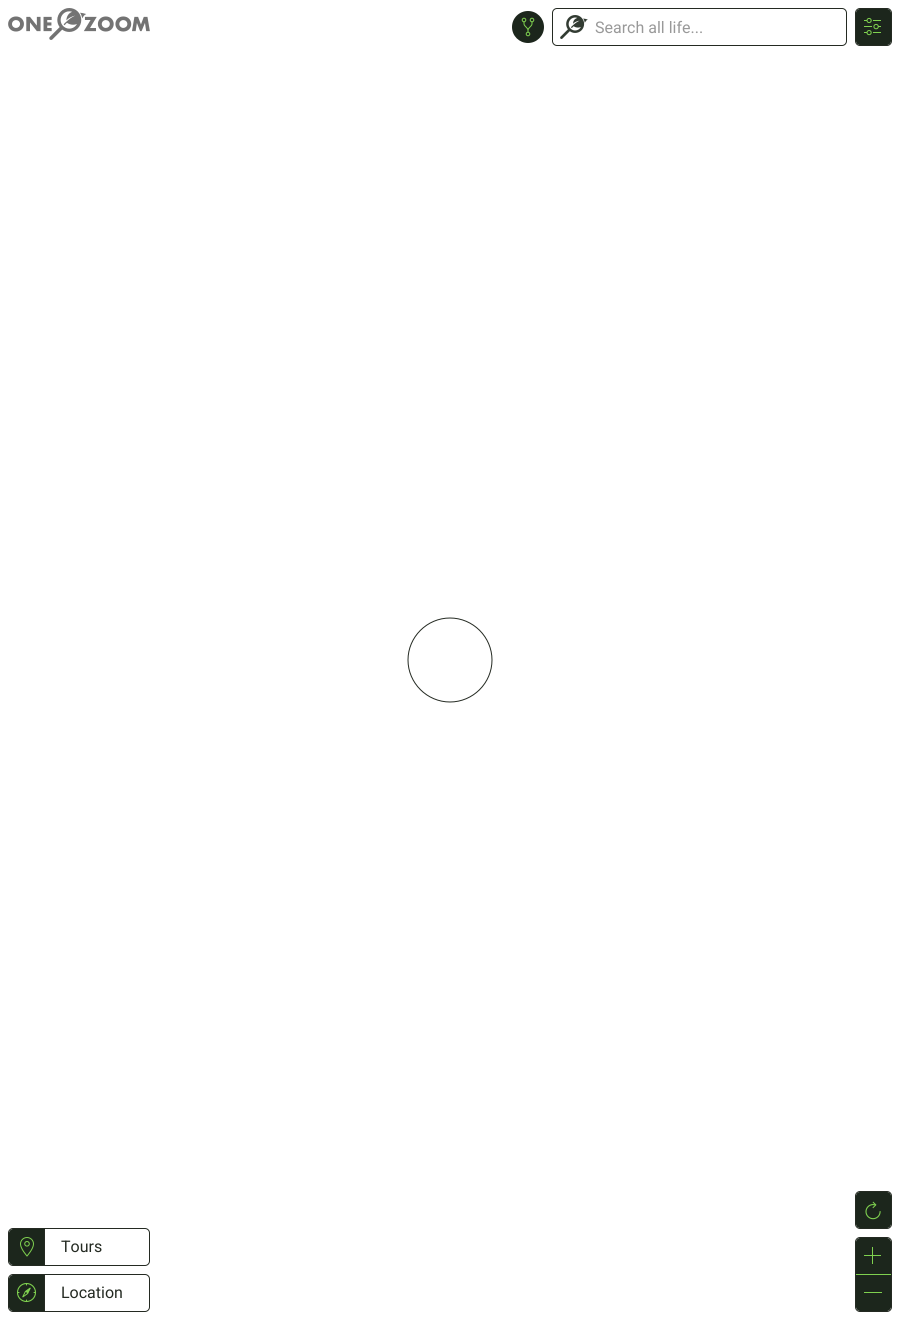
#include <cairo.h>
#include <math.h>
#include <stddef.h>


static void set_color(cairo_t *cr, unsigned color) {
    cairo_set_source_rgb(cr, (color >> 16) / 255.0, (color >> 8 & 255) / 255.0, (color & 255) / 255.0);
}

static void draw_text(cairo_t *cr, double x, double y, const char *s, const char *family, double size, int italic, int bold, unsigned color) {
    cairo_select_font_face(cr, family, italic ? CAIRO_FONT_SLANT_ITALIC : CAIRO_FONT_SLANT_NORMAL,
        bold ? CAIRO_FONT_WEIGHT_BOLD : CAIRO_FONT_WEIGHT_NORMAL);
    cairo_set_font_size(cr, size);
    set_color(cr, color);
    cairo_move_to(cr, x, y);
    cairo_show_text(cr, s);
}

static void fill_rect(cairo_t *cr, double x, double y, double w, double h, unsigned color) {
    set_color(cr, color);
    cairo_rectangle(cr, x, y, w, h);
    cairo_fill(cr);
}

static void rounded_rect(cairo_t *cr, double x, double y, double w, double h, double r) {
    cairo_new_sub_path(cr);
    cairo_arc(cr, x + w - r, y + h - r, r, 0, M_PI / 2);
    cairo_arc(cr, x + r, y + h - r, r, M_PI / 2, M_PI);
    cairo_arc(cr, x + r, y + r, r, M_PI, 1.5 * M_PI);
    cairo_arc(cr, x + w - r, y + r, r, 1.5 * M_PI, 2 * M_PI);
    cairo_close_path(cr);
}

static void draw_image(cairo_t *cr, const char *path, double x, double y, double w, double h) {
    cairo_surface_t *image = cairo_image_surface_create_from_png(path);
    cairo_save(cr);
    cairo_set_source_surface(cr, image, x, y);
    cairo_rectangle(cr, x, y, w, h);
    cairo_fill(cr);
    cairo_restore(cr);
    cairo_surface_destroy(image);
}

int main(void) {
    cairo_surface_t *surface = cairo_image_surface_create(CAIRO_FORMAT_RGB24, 900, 1320);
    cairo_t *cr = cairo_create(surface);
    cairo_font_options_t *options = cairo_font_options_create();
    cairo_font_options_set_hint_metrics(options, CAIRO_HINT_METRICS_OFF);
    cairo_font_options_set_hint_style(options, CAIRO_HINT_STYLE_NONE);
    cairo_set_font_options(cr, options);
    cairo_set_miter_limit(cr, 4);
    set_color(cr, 0xFFFFFF);
    cairo_paint(cr);
    draw_image(cr, "assets/img1.png", 8, 8, 142, 32);
    set_color(cr, 0x1C261C);
    cairo_arc(cr, 528, 27, 16, 0, 2 * M_PI);
    cairo_fill(cr);
    draw_image(cr, "assets/img2.png", 521, 17, 14, 20);
    rounded_rect(cr, 552.5, 8.5, 294, 37, 4.5);
    set_color(cr, 0x242A22);
    cairo_set_line_width(cr, 1);
    cairo_stroke(cr);
    draw_image(cr, "assets/img3.png", 560, 15, 28, 24);
    draw_text(cr, 595, 33, "Search all life...", "Roboto", 16, 0, 0, 0x999999);
    rounded_rect(cr, 855.5, 8.5, 36, 37, 4.5);
    set_color(cr, 0x242A22);
    cairo_stroke(cr);
    set_color(cr, 0x1C261C);
    rounded_rect(cr, 856, 9, 35, 36, 4);
    cairo_fill(cr);
    draw_image(cr, "assets/img4.png", 864, 17, 17, 19);
    cairo_new_path(cr);
    cairo_move_to(cr, 450, 618);
    cairo_curve_to(cr, 473, 618, 492, 637, 492, 660);
    cairo_curve_to(cr, 492, 683, 473, 702, 450, 702);
    cairo_curve_to(cr, 427, 702, 408, 683, 408, 660);
    cairo_curve_to(cr, 408, 637, 427, 618, 450, 618);
    set_color(cr, 0x242A22);
    cairo_set_line_cap(cr, CAIRO_LINE_CAP_ROUND);
    cairo_stroke(cr);
    rounded_rect(cr, 8.5, 1228.5, 141, 37, 4.5);
    cairo_set_line_cap(cr, CAIRO_LINE_CAP_BUTT);
    cairo_stroke(cr);
    set_color(cr, 0x1C261C);
    cairo_new_path(cr);
    cairo_move_to(cr, 13, 1229);
    cairo_line_to(cr, 45, 1229);
    cairo_line_to(cr, 45, 1265);
    cairo_line_to(cr, 13, 1265);
    cairo_curve_to(cr, 11, 1265, 9, 1263, 9, 1261);
    cairo_line_to(cr, 9, 1233);
    cairo_curve_to(cr, 9, 1231, 11, 1229, 13, 1229);
    cairo_close_path(cr);
    cairo_fill(cr);
    fill_rect(cr, 44, 1229, 1, 36, 0x242A22);
    draw_image(cr, "assets/img5.png", 20, 1237, 14, 20);
    draw_text(cr, 61, 1252, "Tours", "Roboto", 16, 0, 0, 0x242A22);
    rounded_rect(cr, 8.5, 1274.5, 141, 37, 4.5);
    cairo_stroke(cr);
    set_color(cr, 0x1C261C);
    cairo_new_path(cr);
    cairo_move_to(cr, 13, 1275);
    cairo_line_to(cr, 45, 1275);
    cairo_line_to(cr, 45, 1311);
    cairo_line_to(cr, 13, 1311);
    cairo_curve_to(cr, 11, 1311, 9, 1309, 9, 1307);
    cairo_line_to(cr, 9, 1279);
    cairo_curve_to(cr, 9, 1277, 11, 1275, 13, 1275);
    cairo_close_path(cr);
    cairo_fill(cr);
    fill_rect(cr, 44, 1275, 1, 36, 0x242A22);
    draw_image(cr, "assets/img6.png", 17, 1283, 20, 20);
    draw_text(cr, 61, 1298, "Location", "Roboto", 16, 0, 0, 0x242A22);
    rounded_rect(cr, 855.5, 1191.5, 36, 37, 4.5);
    cairo_stroke(cr);
    set_color(cr, 0x1C261C);
    rounded_rect(cr, 856, 1192, 35, 36, 4);
    cairo_fill(cr);
    draw_image(cr, "assets/img7.png", 865, 1201, 16, 19);
    rounded_rect(cr, 855.5, 1237.5, 36, 74, 4.5);
    set_color(cr, 0x242A22);
    cairo_stroke(cr);
    set_color(cr, 0x1C261C);
    cairo_new_path(cr);
    cairo_move_to(cr, 860, 1238);
    cairo_line_to(cr, 887, 1238);
    cairo_curve_to(cr, 889, 1238, 891, 1240, 891, 1242);
    cairo_line_to(cr, 891, 1274);
    cairo_line_to(cr, 856, 1274);
    cairo_line_to(cr, 856, 1242);
    cairo_curve_to(cr, 856, 1240, 858, 1238, 860, 1238);
    cairo_close_path(cr);
    cairo_fill(cr);
    fill_rect(cr, 872, 1247, 1, 17, 0x7FD14F);
    fill_rect(cr, 864, 1255, 17, 1, 0x7FD14F);
    set_color(cr, 0x1C261C);
    cairo_new_path(cr);
    cairo_move_to(cr, 856, 1274);
    cairo_line_to(cr, 891, 1274);
    cairo_line_to(cr, 891, 1307);
    cairo_curve_to(cr, 891, 1309, 889, 1311, 887, 1311);
    cairo_line_to(cr, 860, 1311);
    cairo_curve_to(cr, 858, 1311, 856, 1309, 856, 1307);
    cairo_close_path(cr);
    cairo_fill(cr);
    fill_rect(cr, 856, 1274, 35, 1, 0x7FD14F);
    fill_rect(cr, 864, 1292, 18, 1, 0x7FD14F);
    cairo_surface_write_to_png(surface, "output.png");
    cairo_font_options_destroy(options);
    cairo_destroy(cr);
    cairo_surface_destroy(surface);
    return 0;
}
